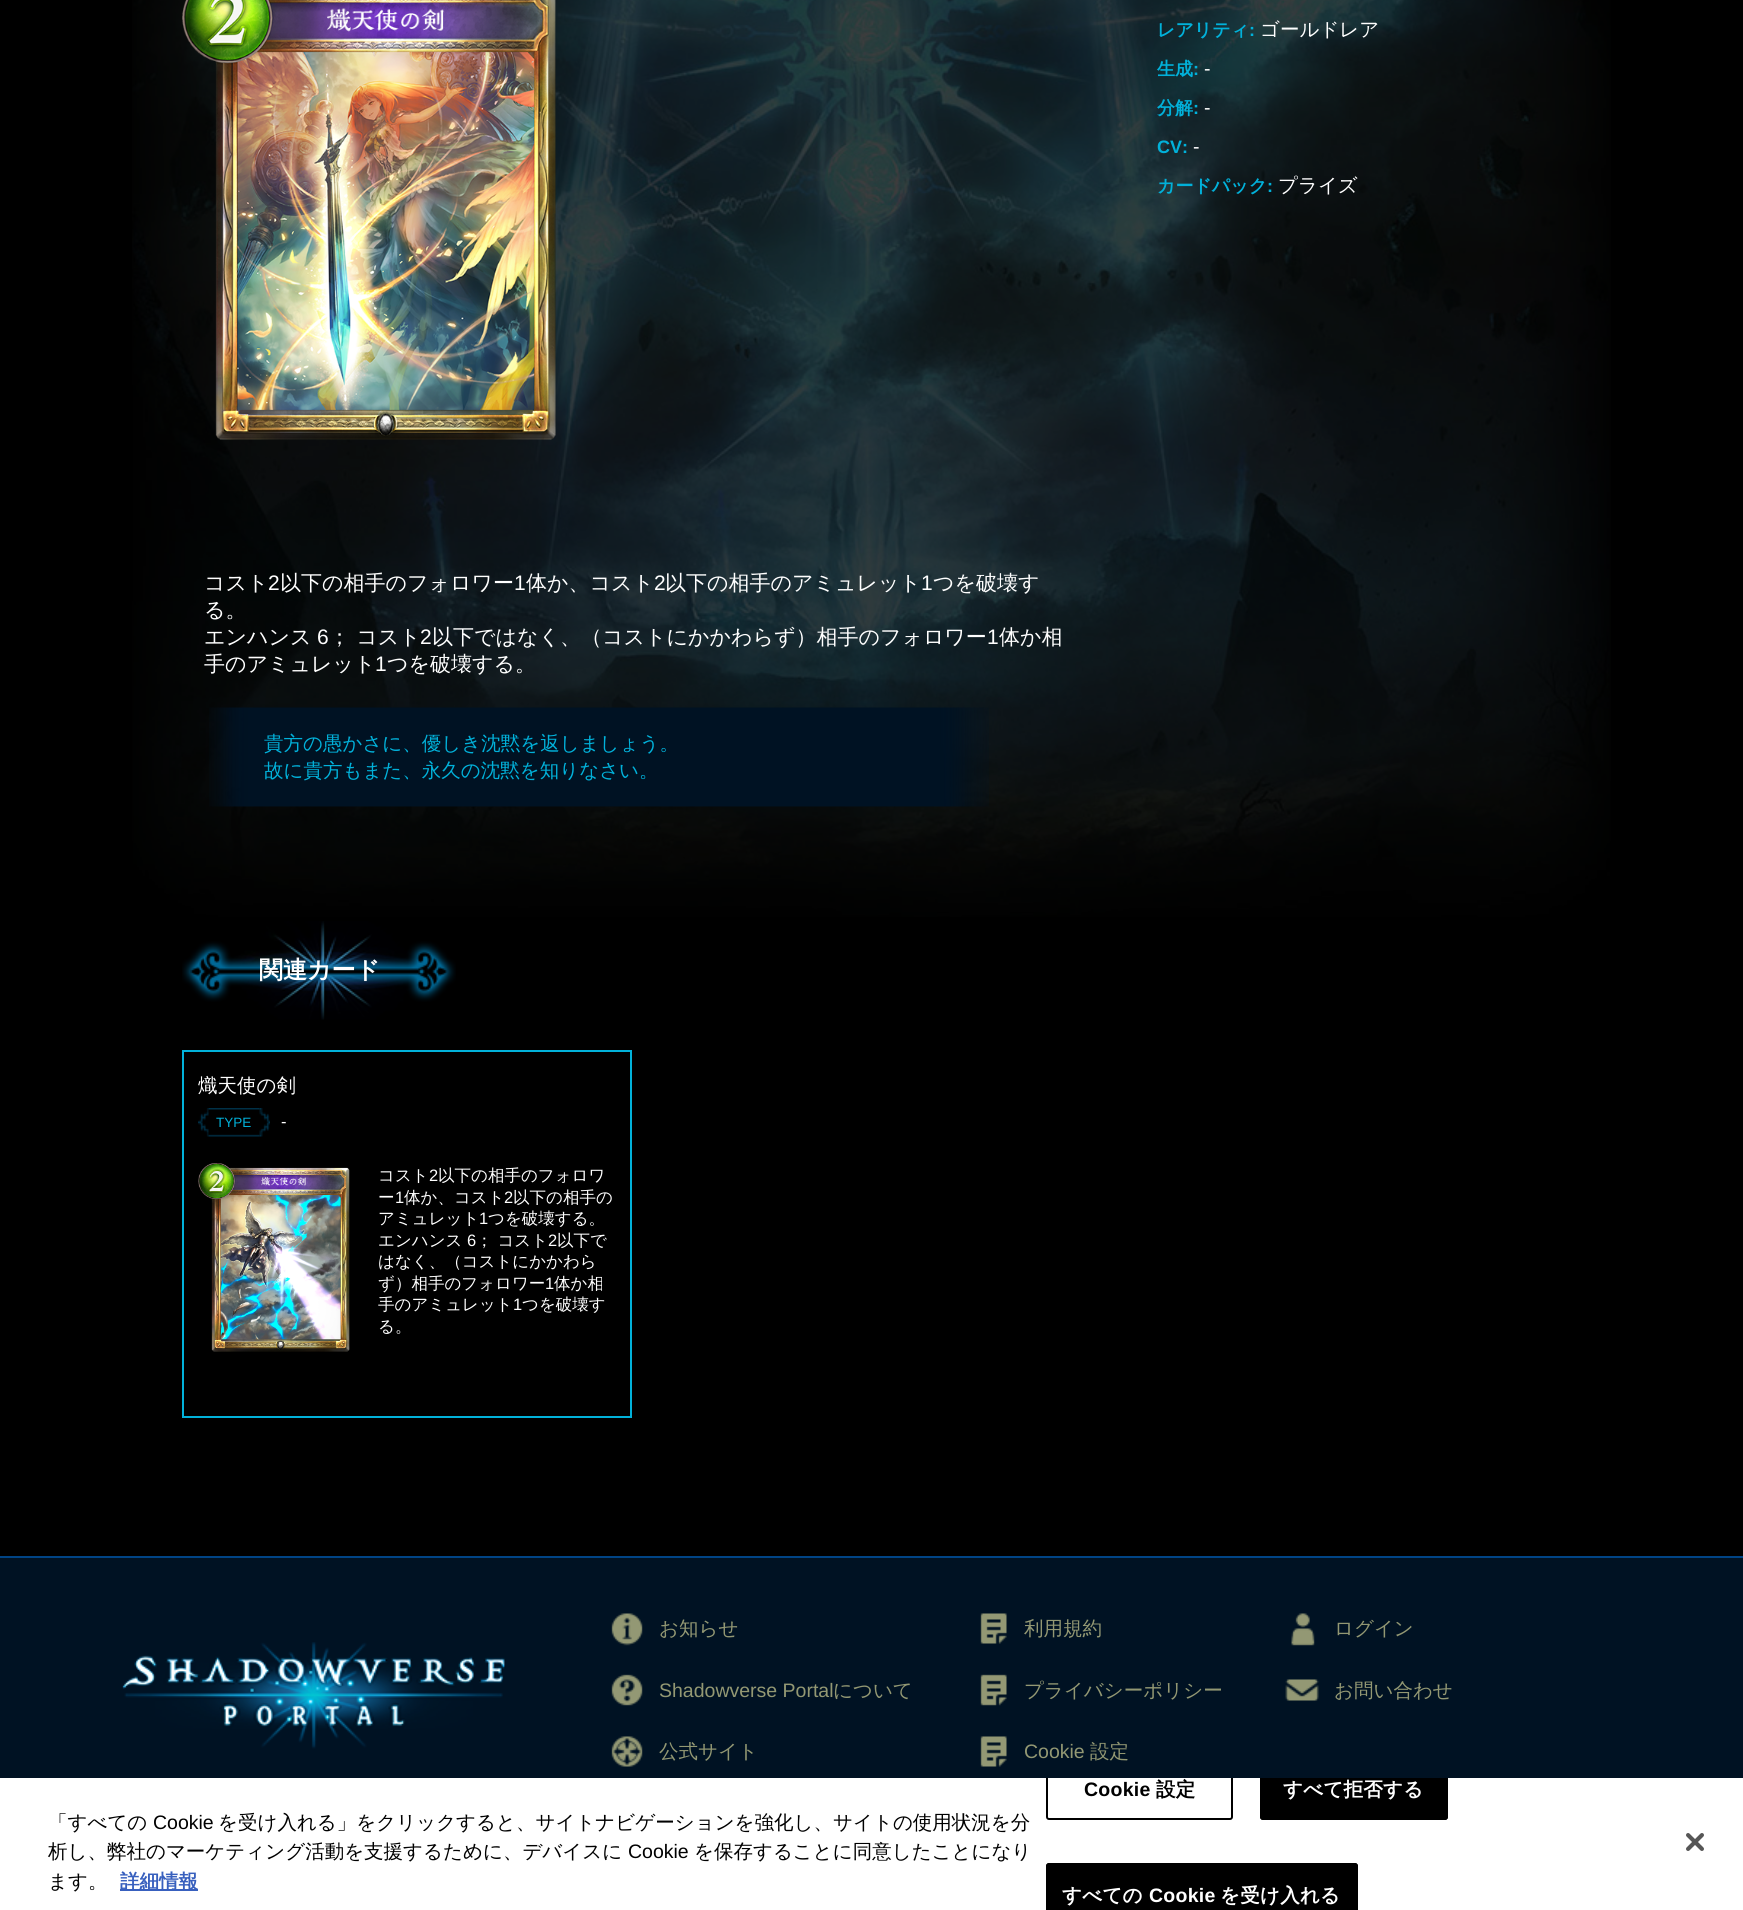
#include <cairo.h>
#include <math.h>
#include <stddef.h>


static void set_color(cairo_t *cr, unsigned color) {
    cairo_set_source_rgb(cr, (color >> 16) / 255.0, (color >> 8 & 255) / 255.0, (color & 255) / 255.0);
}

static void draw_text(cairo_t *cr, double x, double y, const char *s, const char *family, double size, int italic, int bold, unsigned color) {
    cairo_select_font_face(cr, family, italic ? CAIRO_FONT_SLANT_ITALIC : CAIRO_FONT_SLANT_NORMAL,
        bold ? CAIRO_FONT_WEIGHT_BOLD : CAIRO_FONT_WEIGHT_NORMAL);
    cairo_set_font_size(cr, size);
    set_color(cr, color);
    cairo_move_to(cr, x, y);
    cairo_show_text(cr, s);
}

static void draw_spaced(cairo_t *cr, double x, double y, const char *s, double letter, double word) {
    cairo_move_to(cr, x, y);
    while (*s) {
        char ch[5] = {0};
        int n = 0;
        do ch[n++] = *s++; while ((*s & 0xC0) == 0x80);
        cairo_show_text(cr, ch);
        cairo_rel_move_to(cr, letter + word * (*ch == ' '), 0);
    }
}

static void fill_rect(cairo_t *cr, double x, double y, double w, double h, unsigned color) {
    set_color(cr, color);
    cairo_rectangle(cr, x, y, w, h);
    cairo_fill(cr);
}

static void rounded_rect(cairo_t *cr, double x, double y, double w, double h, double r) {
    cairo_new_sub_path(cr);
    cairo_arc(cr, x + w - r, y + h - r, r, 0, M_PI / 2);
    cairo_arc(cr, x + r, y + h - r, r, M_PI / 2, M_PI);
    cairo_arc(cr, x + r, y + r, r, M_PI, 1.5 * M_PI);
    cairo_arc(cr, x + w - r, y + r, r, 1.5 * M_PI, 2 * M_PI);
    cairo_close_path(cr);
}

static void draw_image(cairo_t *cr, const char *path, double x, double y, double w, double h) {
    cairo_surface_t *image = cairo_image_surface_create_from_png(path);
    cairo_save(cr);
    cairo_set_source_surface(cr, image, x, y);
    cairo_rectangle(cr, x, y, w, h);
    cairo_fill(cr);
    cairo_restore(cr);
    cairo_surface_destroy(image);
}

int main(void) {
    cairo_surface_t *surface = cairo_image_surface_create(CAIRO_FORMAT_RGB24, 1743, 1910);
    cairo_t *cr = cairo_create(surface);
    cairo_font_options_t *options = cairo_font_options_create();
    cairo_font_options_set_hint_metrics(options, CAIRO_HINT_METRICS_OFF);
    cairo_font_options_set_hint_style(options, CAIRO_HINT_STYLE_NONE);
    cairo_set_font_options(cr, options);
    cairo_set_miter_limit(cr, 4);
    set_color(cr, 0x000000);
    cairo_paint(cr);
    draw_image(cr, "assets/img1.png", 132, 0, 1479, 917);
    draw_text(cr, 1157, 36, "レアリティ", "WenQuanYi Zen Hei", 18, 0, 1, 0x01B1DA);
    draw_text(cr, 1249, 36, ":", "Liberation Sans", 18, 0, 1, 0x01B1DA);
    draw_text(cr, 1260, 36, "ゴールドレア", "WenQuanYi Zen Hei Medium", 19.5, 0, 0, 0xFFFFFF);
    draw_text(cr, 1157, 75, "生成", "WenQuanYi Zen Hei", 18, 0, 1, 0x01B1DA);
    draw_text(cr, 1193, 75, ":", "Liberation Sans", 18, 0, 1, 0x01B1DA);
    draw_text(cr, 1204, 75, "-", "Liberation Sans", 19.5, 0, 0, 0xFFFFFF);
    draw_text(cr, 1157, 114, "分解", "WenQuanYi Zen Hei", 18, 0, 1, 0x01B1DA);
    draw_text(cr, 1193, 114, ":", "Liberation Sans", 18, 0, 1, 0x01B1DA);
    draw_text(cr, 1204, 114, "-", "Liberation Sans", 19.5, 0, 0, 0xFFFFFF);
    draw_text(cr, 1157, 153, "CV:", "Liberation Sans", 18, 0, 1, 0x01B1DA);
    draw_text(cr, 1193, 153, "-", "Liberation Sans", 19.5, 0, 0, 0xFFFFFF);
    draw_text(cr, 1157, 192, "カードパック", "WenQuanYi Zen Hei", 18, 0, 1, 0x01B1DA);
    draw_text(cr, 1267, 192, ":", "Liberation Sans", 18, 0, 1, 0x01B1DA);
    draw_text(cr, 1278, 192, "プライズ", "WenQuanYi Zen Hei Medium", 19.5, 0, 0, 0xFFFFFF);
    draw_image(cr, "assets/img2.png", 182, 0, 374, 440);
    draw_image(cr, "assets/img3.png", 327, 8, 117, 24);
    draw_text(cr, 204, 590, "コスト", "WenQuanYi Zen Hei Medium", 21, 0, 0, 0xFFFFFF);
    draw_text(cr, 268, 590, "2", "Liberation Sans", 21, 0, 0, 0xFFFFFF);
    draw_text(cr, 280, 590, "以下の相手のフォロワー", "WenQuanYi Zen Hei Medium", 21, 0, 0, 0xFFFFFF);
    draw_text(cr, 514, 590, "1", "Liberation Sans", 21, 0, 0, 0xFFFFFF);
    draw_text(cr, 526, 590, "体か、コスト", "WenQuanYi Zen Hei Medium", 21, 0, 0, 0xFFFFFF);
    draw_text(cr, 654, 590, "2", "Liberation Sans", 21, 0, 0, 0xFFFFFF);
    draw_text(cr, 665, 590, "以下の相手のアミュレット", "WenQuanYi Zen Hei Medium", 21, 0, 0, 0xFFFFFF);
    draw_text(cr, 921, 590, "1", "Liberation Sans", 21, 0, 0, 0xFFFFFF);
    draw_text(cr, 933, 590, "つを破壊す", "WenQuanYi Zen Hei Medium", 21, 0, 0, 0xFFFFFF);
    draw_text(cr, 204, 617, "る。", "WenQuanYi Zen Hei Medium", 21, 0, 0, 0xFFFFFF);
    draw_text(cr, 204, 644, "エンハンス", "WenQuanYi Zen Hei Medium", 21, 0, 0, 0xFFFFFF);
    draw_text(cr, 317, 644, "6", "Liberation Sans", 21, 0, 0, 0xFFFFFF);
    draw_text(cr, 329, 644, "； コスト", "WenQuanYi Zen Hei Medium", 21, 0, 0, 0xFFFFFF);
    draw_text(cr, 420, 644, "2", "Liberation Sans", 21, 0, 0, 0xFFFFFF);
    draw_text(cr, 432, 644, "以下ではなく、（コストにかかわらず）相手のフォロワー", "WenQuanYi Zen Hei Medium", 21, 0, 0, 0xFFFFFF);
    draw_text(cr, 987, 644, "1", "Liberation Sans", 21, 0, 0, 0xFFFFFF);
    draw_text(cr, 999, 644, "体か相", "WenQuanYi Zen Hei Medium", 21, 0, 0, 0xFFFFFF);
    draw_text(cr, 204, 671, "手のアミュレット", "WenQuanYi Zen Hei Medium", 21, 0, 0, 0xFFFFFF);
    draw_text(cr, 375, 671, "1", "Liberation Sans", 21, 0, 0, 0xFFFFFF);
    draw_text(cr, 387, 671, "つを破壊する。", "WenQuanYi Zen Hei Medium", 21, 0, 0, 0xFFFFFF);
    draw_image(cr, "assets/img4.png", 209, 707, 780, 100);
    draw_text(cr, 264, 750, "貴方の愚かさに、優しき沈黙を返しましょう。", "WenQuanYi Zen Hei Medium", 19.5, 0, 0, 0x01B1DA);
    draw_text(cr, 264, 777, "故に貴方もまた、永久の沈黙を知りなさい。", "WenQuanYi Zen Hei Medium", 19.5, 0, 0, 0x01B1DA);
    draw_image(cr, "assets/img5.png", 182, 921, 274, 99);
    draw_text(cr, 259, 978, "関連カード", "WenQuanYi Zen Hei", 24, 0, 1, 0xFFFFFF);
    cairo_rectangle(cr, 183, 1051, 448, 366);
    set_color(cr, 0x01B1DA);
    cairo_stroke(cr);
    draw_text(cr, 198, 1092, "熾天使の剣", "WenQuanYi Zen Hei Medium", 19.5, 0, 0, 0xFFFFFF);
    draw_image(cr, "assets/img6.png", 208, 1108, 52, 29);
    draw_image(cr, "assets/img7.png", 198, 1108, 11, 29);
    draw_text(cr, 216, 1127, "TYPE", "Liberation Sans", 13.5, 0, 0, 0x01B1DA);
    draw_image(cr, "assets/img8.png", 259, 1108, 11, 29);
    draw_text(cr, 281, 1127, "-", "Liberation Sans", 16.5, 0, 0, 0xFFFFFF);
    draw_image(cr, "assets/img9.png", 198, 1163, 152, 189);
    draw_image(cr, "assets/img10.png", 261, 1177, 45, 9);
    draw_text(cr, 378, 1181, "コスト", "WenQuanYi Zen Hei Medium", 16.5, 0, 0, 0xFFFFFF);
    draw_text(cr, 429, 1181, "2", "Liberation Sans", 16.5, 0, 0, 0xFFFFFF);
    draw_text(cr, 438, 1181, "以下の相手のフォロワ", "WenQuanYi Zen Hei Medium", 16.5, 0, 0, 0xFFFFFF);
    draw_text(cr, 378, 1203, "ー", "WenQuanYi Zen Hei Medium", 16.5, 0, 0, 0xFFFFFF);
    draw_text(cr, 395, 1203, "1", "Liberation Sans", 16.5, 0, 0, 0xFFFFFF);
    draw_text(cr, 404, 1203, "体か、コスト", "WenQuanYi Zen Hei Medium", 16.5, 0, 0, 0xFFFFFF);
    draw_text(cr, 504, 1203, "2", "Liberation Sans", 16.5, 0, 0, 0xFFFFFF);
    draw_text(cr, 513, 1203, "以下の相手の", "WenQuanYi Zen Hei Medium", 16.5, 0, 0, 0xFFFFFF);
    draw_text(cr, 378, 1224, "アミュレット", "WenQuanYi Zen Hei Medium", 16.5, 0, 0, 0xFFFFFF);
    draw_text(cr, 479, 1224, "1", "Liberation Sans", 16.5, 0, 0, 0xFFFFFF);
    draw_text(cr, 488, 1224, "つを破壊する。", "WenQuanYi Zen Hei Medium", 16.5, 0, 0, 0xFFFFFF);
    draw_text(cr, 378, 1246, "エンハンス", "WenQuanYi Zen Hei Medium", 16.5, 0, 0, 0xFFFFFF);
    draw_text(cr, 467, 1246, "6", "Liberation Sans", 16.5, 0, 0, 0xFFFFFF);
    draw_text(cr, 476, 1246, "； コスト", "WenQuanYi Zen Hei Medium", 16.5, 0, 0, 0xFFFFFF);
    draw_text(cr, 548, 1246, "2", "Liberation Sans", 16.5, 0, 0, 0xFFFFFF);
    draw_text(cr, 557, 1246, "以下で", "WenQuanYi Zen Hei Medium", 16.5, 0, 0, 0xFFFFFF);
    draw_text(cr, 378, 1267, "はなく、（コストにかかわら", "WenQuanYi Zen Hei Medium", 16.5, 0, 0, 0xFFFFFF);
    draw_text(cr, 378, 1289, "ず）相手のフォロワー", "WenQuanYi Zen Hei Medium", 16.5, 0, 0, 0xFFFFFF);
    draw_text(cr, 545, 1289, "1", "Liberation Sans", 16.5, 0, 0, 0xFFFFFF);
    draw_text(cr, 554, 1289, "体か相", "WenQuanYi Zen Hei Medium", 16.5, 0, 0, 0xFFFFFF);
    draw_text(cr, 378, 1310, "手のアミュレット", "WenQuanYi Zen Hei Medium", 16.5, 0, 0, 0xFFFFFF);
    draw_text(cr, 513, 1310, "1", "Liberation Sans", 16.5, 0, 0, 0xFFFFFF);
    draw_text(cr, 522, 1310, "つを破壊す", "WenQuanYi Zen Hei Medium", 16.5, 0, 0, 0xFFFFFF);
    draw_text(cr, 378, 1332, "る。", "WenQuanYi Zen Hei Medium", 16.5, 0, 0, 0xFFFFFF);
    fill_rect(cr, 0, 1558, 1743, 220, 0x001223);
    fill_rect(cr, 0, 1556, 1743, 2, 0x004485);
    draw_image(cr, "assets/img11.png", 122, 1642, 384, 107);
    draw_image(cr, "assets/img12.png", 611, 1613, 32, 33);
    draw_text(cr, 659, 1635, "お知らせ", "WenQuanYi Zen Hei Medium", 19.5, 0, 0, 0x939873);
    draw_image(cr, "assets/img13.png", 611, 1674, 32, 32);
    draw_text(cr, 659, 1697, "Shadowverse Portal", "Liberation Sans", 19.5, 0, 0, 0x939873);
    draw_text(cr, 833, 1697, "について", "WenQuanYi Zen Hei Medium", 19.5, 0, 0, 0x939873);
    draw_image(cr, "assets/img14.png", 611, 1736, 32, 31);
    draw_text(cr, 659, 1758, "公式サイト", "WenQuanYi Zen Hei Medium", 19.5, 0, 0, 0x939873);
    draw_image(cr, "assets/img15.png", 980, 1613, 27, 31);
    draw_text(cr, 1024, 1635, "利用規約", "WenQuanYi Zen Hei Medium", 19.5, 0, 0, 0x939873);
    draw_image(cr, "assets/img16.png", 980, 1674, 27, 32);
    draw_text(cr, 1024, 1697, "プライバシーポリシー", "WenQuanYi Zen Hei Medium", 19.5, 0, 0, 0x939873);
    draw_image(cr, "assets/img15.png", 980, 1736, 27, 31);
    draw_text(cr, 1024, 1758, "Cookie", "Liberation Sans", 19.5, 0, 0, 0x939873);
    draw_text(cr, 1090, 1758, "設定", "WenQuanYi Zen Hei Medium", 19.5, 0, 0, 0x939873);
    draw_image(cr, "assets/img17.png", 1291, 1613, 24, 33);
    draw_text(cr, 1334, 1635, "ログイン", "WenQuanYi Zen Hei Medium", 19.5, 0, 0, 0x939873);
    draw_image(cr, "assets/img18.png", 1285, 1679, 34, 22);
    draw_text(cr, 1334, 1697, "お問い合わせ", "WenQuanYi Zen Hei Medium", 19.5, 0, 0, 0x939873);
    fill_rect(cr, 0, 1778, 1743, 132, 0xFFFFFF);
    draw_text(cr, 48, 1829, "「すべての", "WenQuanYi Zen Hei Medium", 19.5, 0, 0, 0x000000);
    draw_text(cr, 153, 1829, "Cookie", "Liberation Sans", 19.5, 0, 0, 0x000000);
    draw_text(cr, 218, 1829, "を受け入れる」をクリックすると、サイトナビゲーションを強化し、サイトの使用状況を分", "WenQuanYi Zen Hei Medium", 19.5, 0, 0, 0x000000);
    draw_text(cr, 48, 1858, "析し、弊社のマーケティング活動を支援するために、デバイスに", "WenQuanYi Zen Hei Medium", 19.5, 0, 0, 0x000000);
    draw_text(cr, 628, 1858, "Cookie", "Liberation Sans", 19.5, 0, 0, 0x000000);
    draw_text(cr, 694, 1858, "を保存することに同意したことになり", "WenQuanYi Zen Hei Medium", 19.5, 0, 0, 0x000000);
    draw_text(cr, 48, 1888, "ます。", "WenQuanYi Zen Hei Medium", 19.5, 0, 0, 0x000000);
    fill_rect(cr, 120, 1889, 78, 2, 0x3860BE);
    draw_text(cr, 120, 1888, "詳細情報", "WenQuanYi Zen Hei", 19.5, 0, 1, 0x3860BE);
    cairo_save(cr);
    cairo_rectangle(cr, 0, 1778, 1743, 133);
    cairo_clip(cr);
    rounded_rect(cr, 1047, 1759, 185, 60, 2);
    set_color(cr, 0x000000);
    cairo_stroke(cr);
    cairo_restore(cr);
    cairo_select_font_face(cr, "Liberation Sans", CAIRO_FONT_SLANT_NORMAL, CAIRO_FONT_WEIGHT_BOLD);
    set_color(cr, 0x000000);
    draw_spaced(cr, 1084, 1796, "Cookie", 0.25, 0);
    cairo_select_font_face(cr, "WenQuanYi Zen Hei", CAIRO_FONT_SLANT_NORMAL, CAIRO_FONT_WEIGHT_BOLD);
    draw_spaced(cr, 1156, 1796, "設定", 0.25, 0);
    cairo_new_path(cr);
    cairo_move_to(cr, 1260, 1778);
    cairo_line_to(cr, 1448, 1778);
    cairo_line_to(cr, 1448, 1817);
    cairo_curve_to(cr, 1448, 1818.5, 1446.5, 1820, 1445, 1820);
    cairo_line_to(cr, 1263, 1820);
    cairo_curve_to(cr, 1261.5, 1820, 1260, 1818.5, 1260, 1817);
    cairo_close_path(cr);
    cairo_fill(cr);
    cairo_save(cr);
    cairo_rectangle(cr, 0, 1778, 1743, 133);
    cairo_clip(cr);
    rounded_rect(cr, 1261, 1759, 186, 60, 2);
    cairo_stroke(cr);
    cairo_restore(cr);
    set_color(cr, 0xFFFFFF);
    draw_spaced(cr, 1283, 1796, "すべて拒否する", 0.25, 0);
    set_color(cr, 0x000000);
    cairo_new_path(cr);
    cairo_move_to(cr, 1049, 1863);
    cairo_line_to(cr, 1355, 1863);
    cairo_curve_to(cr, 1356.5, 1863, 1358, 1864.5, 1358, 1866);
    cairo_line_to(cr, 1358, 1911);
    cairo_line_to(cr, 1046, 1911);
    cairo_line_to(cr, 1046, 1866);
    cairo_curve_to(cr, 1046, 1864.5, 1047.5, 1863, 1049, 1863);
    cairo_close_path(cr);
    cairo_fill(cr);
    rounded_rect(cr, 1047, 1864, 310, 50, 2);
    cairo_stroke(cr);
    set_color(cr, 0xFFFFFF);
    draw_spaced(cr, 1062, 1902, "すべての", 0.25, 0);
    cairo_select_font_face(cr, "Liberation Sans", CAIRO_FONT_SLANT_NORMAL, CAIRO_FONT_WEIGHT_BOLD);
    draw_spaced(cr, 1149, 1902, "Cookie", 0.25, 0);
    cairo_select_font_face(cr, "WenQuanYi Zen Hei", CAIRO_FONT_SLANT_NORMAL, CAIRO_FONT_WEIGHT_BOLD);
    draw_spaced(cr, 1220, 1902, "を受け入れる", 0.25, 0);
    draw_image(cr, "assets/img19.png", 1686, 1833, 18, 18);
    cairo_surface_write_to_png(surface, "output.png");
    cairo_font_options_destroy(options);
    cairo_destroy(cr);
    cairo_surface_destroy(surface);
    return 0;
}
